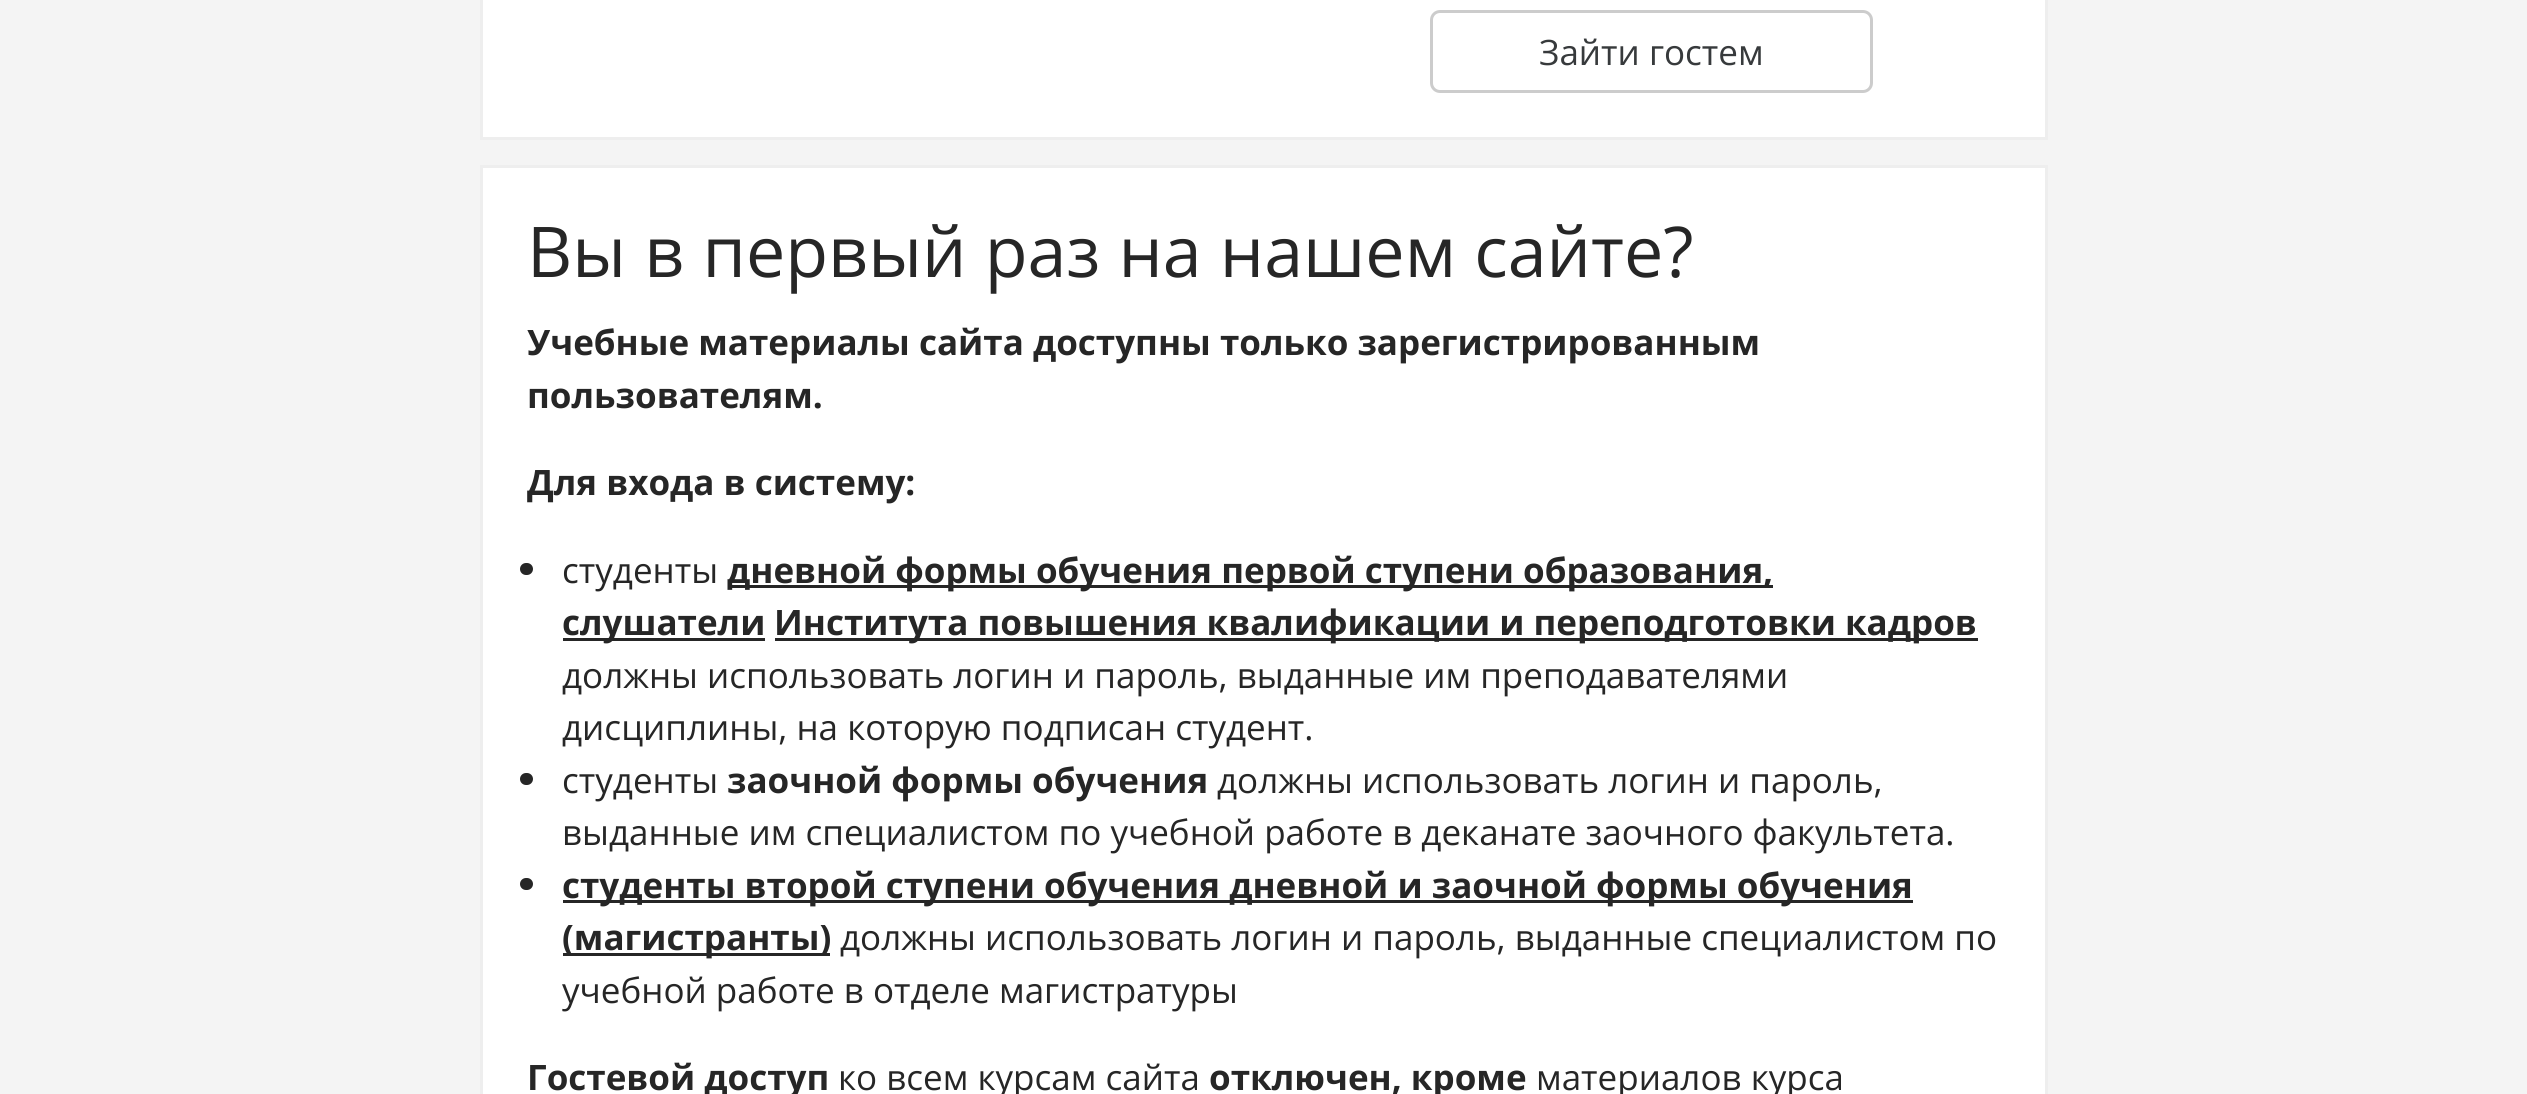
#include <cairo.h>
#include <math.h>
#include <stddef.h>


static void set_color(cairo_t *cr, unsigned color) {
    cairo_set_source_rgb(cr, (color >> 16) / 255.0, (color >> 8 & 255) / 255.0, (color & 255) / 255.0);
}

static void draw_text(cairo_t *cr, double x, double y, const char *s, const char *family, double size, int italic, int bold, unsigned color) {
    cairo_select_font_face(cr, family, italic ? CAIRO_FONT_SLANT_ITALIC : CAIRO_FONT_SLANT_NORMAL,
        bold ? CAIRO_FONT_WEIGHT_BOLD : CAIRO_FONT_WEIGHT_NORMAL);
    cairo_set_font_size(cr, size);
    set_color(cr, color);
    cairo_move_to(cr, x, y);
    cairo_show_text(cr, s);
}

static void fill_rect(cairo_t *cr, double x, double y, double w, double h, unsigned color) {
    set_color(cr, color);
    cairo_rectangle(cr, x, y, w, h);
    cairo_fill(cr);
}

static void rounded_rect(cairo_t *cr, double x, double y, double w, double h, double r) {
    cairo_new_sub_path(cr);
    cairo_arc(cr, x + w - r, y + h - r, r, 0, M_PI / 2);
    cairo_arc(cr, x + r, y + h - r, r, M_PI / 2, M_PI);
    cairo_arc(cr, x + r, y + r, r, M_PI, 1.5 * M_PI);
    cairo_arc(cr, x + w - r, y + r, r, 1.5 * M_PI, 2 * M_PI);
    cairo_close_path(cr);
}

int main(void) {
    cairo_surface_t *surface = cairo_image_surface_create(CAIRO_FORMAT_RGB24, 2527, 1094);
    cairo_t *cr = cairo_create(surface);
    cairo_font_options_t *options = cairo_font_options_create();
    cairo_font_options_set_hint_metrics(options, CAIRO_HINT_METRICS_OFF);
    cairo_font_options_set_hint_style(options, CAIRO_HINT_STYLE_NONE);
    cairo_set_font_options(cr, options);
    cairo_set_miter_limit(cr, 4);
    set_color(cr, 0xF4F4F4);
    cairo_paint(cr);
    set_color(cr, 0xFFFFFF);
    cairo_rectangle(cr, 481.5, -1.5, 1565, 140);
    cairo_fill_preserve(cr);
    set_color(cr, 0xEEEEEE);
    cairo_set_line_width(cr, 3);
    cairo_stroke(cr);
    rounded_rect(cr, 1431.5, 11.5, 440, 80, 8.5);
    set_color(cr, 0xCCCCCC);
    cairo_stroke(cr);
    draw_text(cr, 1539, 65, "Зайти гостем", "Open Sans", 35, 0, 0, 0x373A3C);
    set_color(cr, 0xFFFFFF);
    cairo_rectangle(cr, 481.5, 166.5, 1565, 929);
    cairo_fill_preserve(cr);
    set_color(cr, 0xEEEEEE);
    cairo_stroke(cr);
    draw_text(cr, 527, 277, "Вы в первый раз на нашем сайте?", "Open Sans", 70, 0, 0, 0x262626);
    draw_text(cr, 527, 355, "Учебные материалы сайта доступны только зарегистрированным", "Open Sans", 35, 0, 1, 0x262626);
    draw_text(cr, 527, 408, "пользователям.", "Open Sans", 35, 0, 1, 0x262626);
    draw_text(cr, 527, 495, "Для входа в систему:", "Open Sans", 35, 0, 1, 0x262626);
    rounded_rect(cr, 520, 563, 13, 12, 6);
    cairo_fill(cr);
    draw_text(cr, 562, 583, "студенты", "Open Sans", 35, 0, 0, 0x262626);
    fill_rect(cr, 728, 585, 1045, 3, 0x262626);
    draw_text(cr, 727, 583, "дневной формы обучения первой ступени образования,", "Open Sans", 35, 0, 1, 0x262626);
    fill_rect(cr, 563, 638, 202, 3, 0x262626);
    draw_text(cr, 562, 635, "слушатели", "Open Sans", 35, 0, 1, 0x262626);
    fill_rect(cr, 775, 638, 1203, 3, 0x262626);
    draw_text(cr, 774, 635, "Института повышения квалификации и переподготовки кадров", "Open Sans", 35, 0, 1, 0x262626);
    draw_text(cr, 562, 688, "должны использовать логин и пароль, выданные им преподавателями", "Open Sans", 35, 0, 0, 0x262626);
    draw_text(cr, 562, 740, "дисциплины, на которую подписан студент.", "Open Sans", 35, 0, 0, 0x262626);
    rounded_rect(cr, 520, 773, 13, 12, 6);
    cairo_fill(cr);
    draw_text(cr, 562, 793, "студенты", "Open Sans", 35, 0, 0, 0x262626);
    draw_text(cr, 727, 793, "заочной формы обучения", "Open Sans", 35, 0, 1, 0x262626);
    draw_text(cr, 1217, 793, "должны использовать логин и пароль,", "Open Sans", 35, 0, 0, 0x262626);
    draw_text(cr, 562, 845, "выданные им специалистом по учебной работе в деканате заочного факультета.", "Open Sans", 35, 0, 0, 0x262626);
    rounded_rect(cr, 520, 878, 13, 12, 6);
    cairo_fill(cr);
    fill_rect(cr, 563, 900, 1350, 3, 0x262626);
    draw_text(cr, 562, 898, "студенты второй ступени обучения дневной и заочной формы обучения", "Open Sans", 35, 0, 1, 0x262626);
    fill_rect(cr, 563, 953, 267, 3, 0x262626);
    draw_text(cr, 562, 950, "(магистранты)", "Open Sans", 35, 0, 1, 0x262626);
    draw_text(cr, 840, 950, "должны использовать логин и пароль, выданные специалистом по", "Open Sans", 35, 0, 0, 0x262626);
    draw_text(cr, 562, 1003, "учебной работе в отделе магистратуры", "Open Sans", 35, 0, 0, 0x262626);
    draw_text(cr, 527, 1090, "Гостевой доступ", "Open Sans", 35, 0, 1, 0x262626);
    draw_text(cr, 838, 1090, "ко всем курсам сайта", "Open Sans", 35, 0, 0, 0x262626);
    draw_text(cr, 1209, 1090, "отключен, кроме", "Open Sans", 35, 0, 1, 0x262626);
    draw_text(cr, 1536, 1090, "материалов курса", "Open Sans", 35, 0, 0, 0x262626);
    cairo_surface_write_to_png(surface, "output.png");
    cairo_font_options_destroy(options);
    cairo_destroy(cr);
    cairo_surface_destroy(surface);
    return 0;
}
